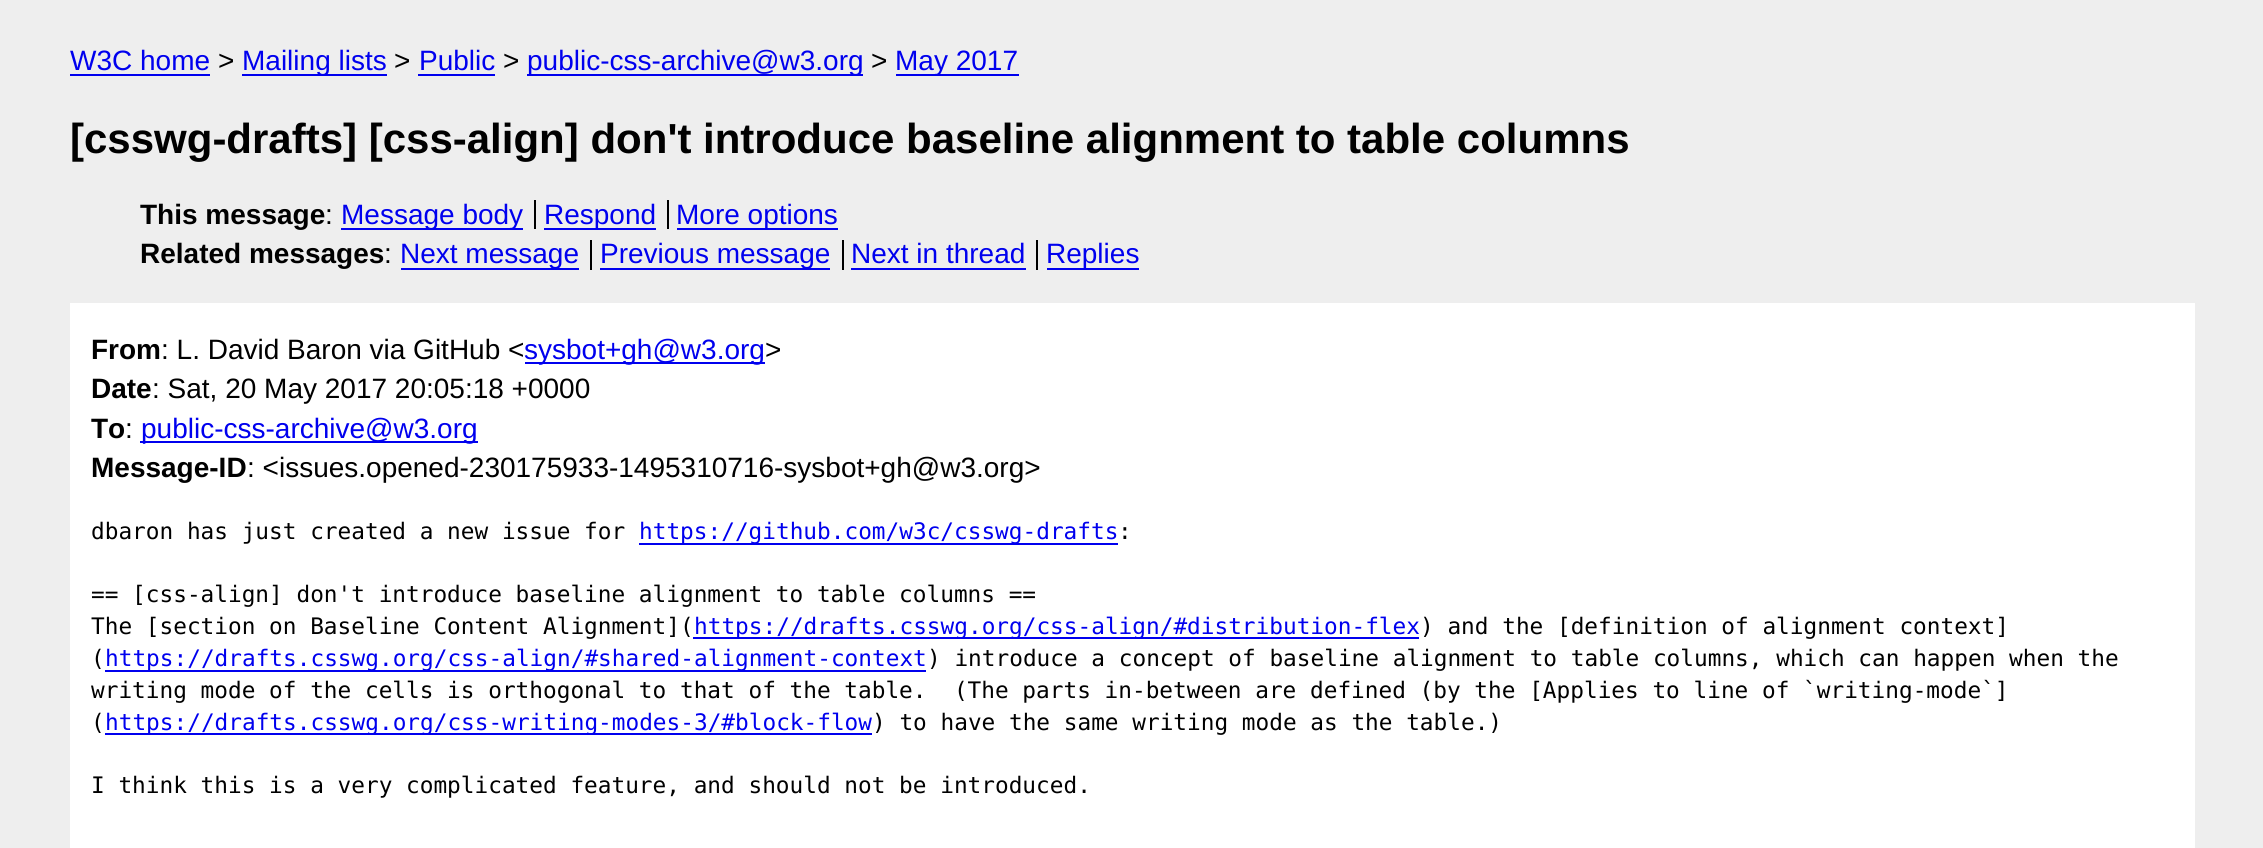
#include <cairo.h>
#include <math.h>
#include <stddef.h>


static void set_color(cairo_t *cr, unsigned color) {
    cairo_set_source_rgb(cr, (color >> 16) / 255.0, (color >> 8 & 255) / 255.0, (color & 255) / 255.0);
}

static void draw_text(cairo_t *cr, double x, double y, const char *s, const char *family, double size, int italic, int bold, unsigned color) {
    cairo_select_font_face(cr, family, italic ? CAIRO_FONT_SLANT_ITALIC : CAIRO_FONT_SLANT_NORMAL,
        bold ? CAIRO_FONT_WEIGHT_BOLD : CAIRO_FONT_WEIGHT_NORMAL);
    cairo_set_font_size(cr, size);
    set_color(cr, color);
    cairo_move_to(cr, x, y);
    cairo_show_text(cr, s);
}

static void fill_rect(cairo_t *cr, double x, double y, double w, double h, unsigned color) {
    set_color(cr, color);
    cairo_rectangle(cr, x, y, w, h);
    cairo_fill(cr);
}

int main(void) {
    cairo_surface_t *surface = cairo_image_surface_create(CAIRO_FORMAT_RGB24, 2263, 848);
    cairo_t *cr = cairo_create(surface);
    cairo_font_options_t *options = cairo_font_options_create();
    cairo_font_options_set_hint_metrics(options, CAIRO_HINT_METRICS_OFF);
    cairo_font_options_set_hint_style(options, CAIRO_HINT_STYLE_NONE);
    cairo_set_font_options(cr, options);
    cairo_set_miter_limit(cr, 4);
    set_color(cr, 0xEEEEEE);
    cairo_paint(cr);
    draw_text(cr, 70, 70, "W3C home", "Liberation Sans", 28, 0, 0, 0x0000EE);
    fill_rect(cr, 70, 74, 140, 2, 0x0000EE);
    draw_text(cr, 218, 70, ">", "Liberation Sans", 28, 0, 0, 0x000000);
    fill_rect(cr, 242, 74, 145, 2, 0x0000EE);
    draw_text(cr, 242, 70, "Mailing lists", "Liberation Sans", 28, 0, 0, 0x0000EE);
    draw_text(cr, 394, 70, ">", "Liberation Sans", 28, 0, 0, 0x000000);
    draw_text(cr, 419, 70, "Public", "Liberation Sans", 28, 0, 0, 0x0000EE);
    fill_rect(cr, 418, 74, 77, 2, 0x0000EE);
    draw_text(cr, 503, 70, ">", "Liberation Sans", 28, 0, 0, 0x000000);
    fill_rect(cr, 527, 74, 336, 2, 0x0000EE);
    draw_text(cr, 527, 70, "public-css-archive@w3.org", "Liberation Sans", 28, 0, 0, 0x0000EE);
    draw_text(cr, 871, 70, ">", "Liberation Sans", 28, 0, 0, 0x000000);
    fill_rect(cr, 896, 74, 123, 2, 0x0000EE);
    draw_text(cr, 895, 70, "May 2017", "Liberation Sans", 28, 0, 0, 0x0000EE);
    draw_text(cr, 70, 153, "[csswg-drafts] [css-align] don't introduce baseline alignment to table columns", "Liberation Sans", 42, 0, 1, 0x000000);
    draw_text(cr, 140, 224, "This message", "Liberation Sans", 28, 0, 1, 0x000000);
    draw_text(cr, 325, 224, ":", "Liberation Sans", 28, 0, 0, 0x000000);
    fill_rect(cr, 341, 228, 182, 2, 0x0000EE);
    draw_text(cr, 341, 224, "Message body", "Liberation Sans", 28, 0, 0, 0x0000EE);
    fill_rect(cr, 544, 228, 112, 2, 0x0000EE);
    draw_text(cr, 544, 224, "Respond", "Liberation Sans", 28, 0, 0, 0x0000EE);
    fill_rect(cr, 534, 200, 2, 29, 0x000000);
    fill_rect(cr, 677, 228, 161, 2, 0x0000EE);
    draw_text(cr, 676, 224, "More options", "Liberation Sans", 28, 0, 0, 0x0000EE);
    fill_rect(cr, 667, 200, 2, 29, 0x000000);
    draw_text(cr, 140, 263, "Related messages", "Liberation Sans", 28, 0, 1, 0x000000);
    draw_text(cr, 384, 263, ":", "Liberation Sans", 28, 0, 0, 0x000000);
    fill_rect(cr, 401, 268, 178, 2, 0x0000EE);
    draw_text(cr, 400, 263, "Next message", "Liberation Sans", 28, 0, 0, 0x0000EE);
    fill_rect(cr, 600, 268, 230, 2, 0x0000EE);
    draw_text(cr, 600, 263, "Previous message", "Liberation Sans", 28, 0, 0, 0x0000EE);
    fill_rect(cr, 590, 240, 2, 30, 0x000000);
    draw_text(cr, 851, 263, "Next in thread", "Liberation Sans", 28, 0, 0, 0x0000EE);
    fill_rect(cr, 842, 240, 2, 30, 0x000000);
    fill_rect(cr, 851, 268, 175, 2, 0x0000EE);
    fill_rect(cr, 1047, 268, 92, 2, 0x0000EE);
    draw_text(cr, 1046, 263, "Replies", "Liberation Sans", 28, 0, 0, 0x0000EE);
    fill_rect(cr, 1036, 240, 2, 30, 0x000000);
    fill_rect(cr, 70, 303, 2125, 545, 0xFFFFFF);
    draw_text(cr, 91, 359, "From", "Liberation Sans", 28, 0, 1, 0x000000);
    draw_text(cr, 161, 359, ": L. David Baron via GitHub <", "Liberation Sans", 28, 0, 0, 0x000000);
    fill_rect(cr, 525, 362, 240, 2, 0x0000EE);
    draw_text(cr, 524, 359, "sysbot+gh@w3.org", "Liberation Sans", 28, 0, 0, 0x0000EE);
    draw_text(cr, 765, 359, ">", "Liberation Sans", 28, 0, 0, 0x000000);
    draw_text(cr, 91, 398, "Date", "Liberation Sans", 28, 0, 1, 0x000000);
    draw_text(cr, 152, 398, ": Sat, 20 May 2017 20:05:18 +0000", "Liberation Sans", 28, 0, 0, 0x000000);
    draw_text(cr, 91, 438, "To", "Liberation Sans", 28, 0, 1, 0x000000);
    draw_text(cr, 125, 438, ":", "Liberation Sans", 28, 0, 0, 0x000000);
    fill_rect(cr, 140, 441, 338, 2, 0x0000EE);
    draw_text(cr, 141, 438, "public-css-archive@w3.org", "Liberation Sans", 28, 0, 0, 0x0000EE);
    draw_text(cr, 91, 477, "Message-ID", "Liberation Sans", 28, 0, 1, 0x000000);
    draw_text(cr, 247, 477, ": <issues.opened-230175933-1495310716-sysbot+gh@w3.org>", "Liberation Sans", 28, 0, 0, 0x000000);
    draw_text(cr, 91, 539, "dbaron has just created a new issue for", "DejaVu Sans Mono", 22.75, 0, 0, 0x000000);
    fill_rect(cr, 639, 543, 479, 2, 0x0000EE);
    draw_text(cr, 639, 539, "https://github.com/w3c/csswg-drafts", "DejaVu Sans Mono", 22.75, 0, 0, 0x0000EE);
    draw_text(cr, 1118, 539, ":", "DejaVu Sans Mono", 22.75, 0, 0, 0x000000);
    draw_text(cr, 91, 602, "== [css-align] don't introduce baseline alignment to table columns ==", "DejaVu Sans Mono", 22.75, 0, 0, 0x000000);
    draw_text(cr, 91, 634, "The [section on Baseline Content Alignment](", "DejaVu Sans Mono", 22.75, 0, 0, 0x000000);
    fill_rect(cr, 693, 637, 726, 2, 0x0000EE);
    draw_text(cr, 694, 634, "https://drafts.csswg.org/css-align/#distribution-flex", "DejaVu Sans Mono", 22.75, 0, 0, 0x0000EE);
    draw_text(cr, 1420, 634, ") and the [definition of alignment context]", "DejaVu Sans Mono", 22.75, 0, 0, 0x000000);
    draw_text(cr, 91, 666, "(", "DejaVu Sans Mono", 22.75, 0, 0, 0x000000);
    fill_rect(cr, 105, 670, 821, 2, 0x0000EE);
    draw_text(cr, 105, 666, "https://drafts.csswg.org/css-align/#shared-alignment-context", "DejaVu Sans Mono", 22.75, 0, 0, 0x0000EE);
    draw_text(cr, 927, 666, ") introduce a concept of baseline alignment to table columns, which can happen when the", "DejaVu Sans Mono", 22.75, 0, 0, 0x000000);
    draw_text(cr, 91, 698, "writing mode of the cells is orthogonal to that of the table.  (The parts in-between are defined (by the [Applies to line of `writing-mode`]", "DejaVu Sans Mono", 22.75, 0, 0, 0x000000);
    draw_text(cr, 91, 730, "(", "DejaVu Sans Mono", 22.75, 0, 0, 0x000000);
    fill_rect(cr, 105, 733, 767, 2, 0x0000EE);
    draw_text(cr, 105, 730, "https://drafts.csswg.org/css-writing-modes-3/#block-flow", "DejaVu Sans Mono", 22.75, 0, 0, 0x0000EE);
    draw_text(cr, 872, 730, ") to have the same writing mode as the table.)", "DejaVu Sans Mono", 22.75, 0, 0, 0x000000);
    draw_text(cr, 91, 793, "I think this is a very complicated feature, and should not be introduced.", "DejaVu Sans Mono", 22.75, 0, 0, 0x000000);
    cairo_surface_write_to_png(surface, "output.png");
    cairo_font_options_destroy(options);
    cairo_destroy(cr);
    cairo_surface_destroy(surface);
    return 0;
}
